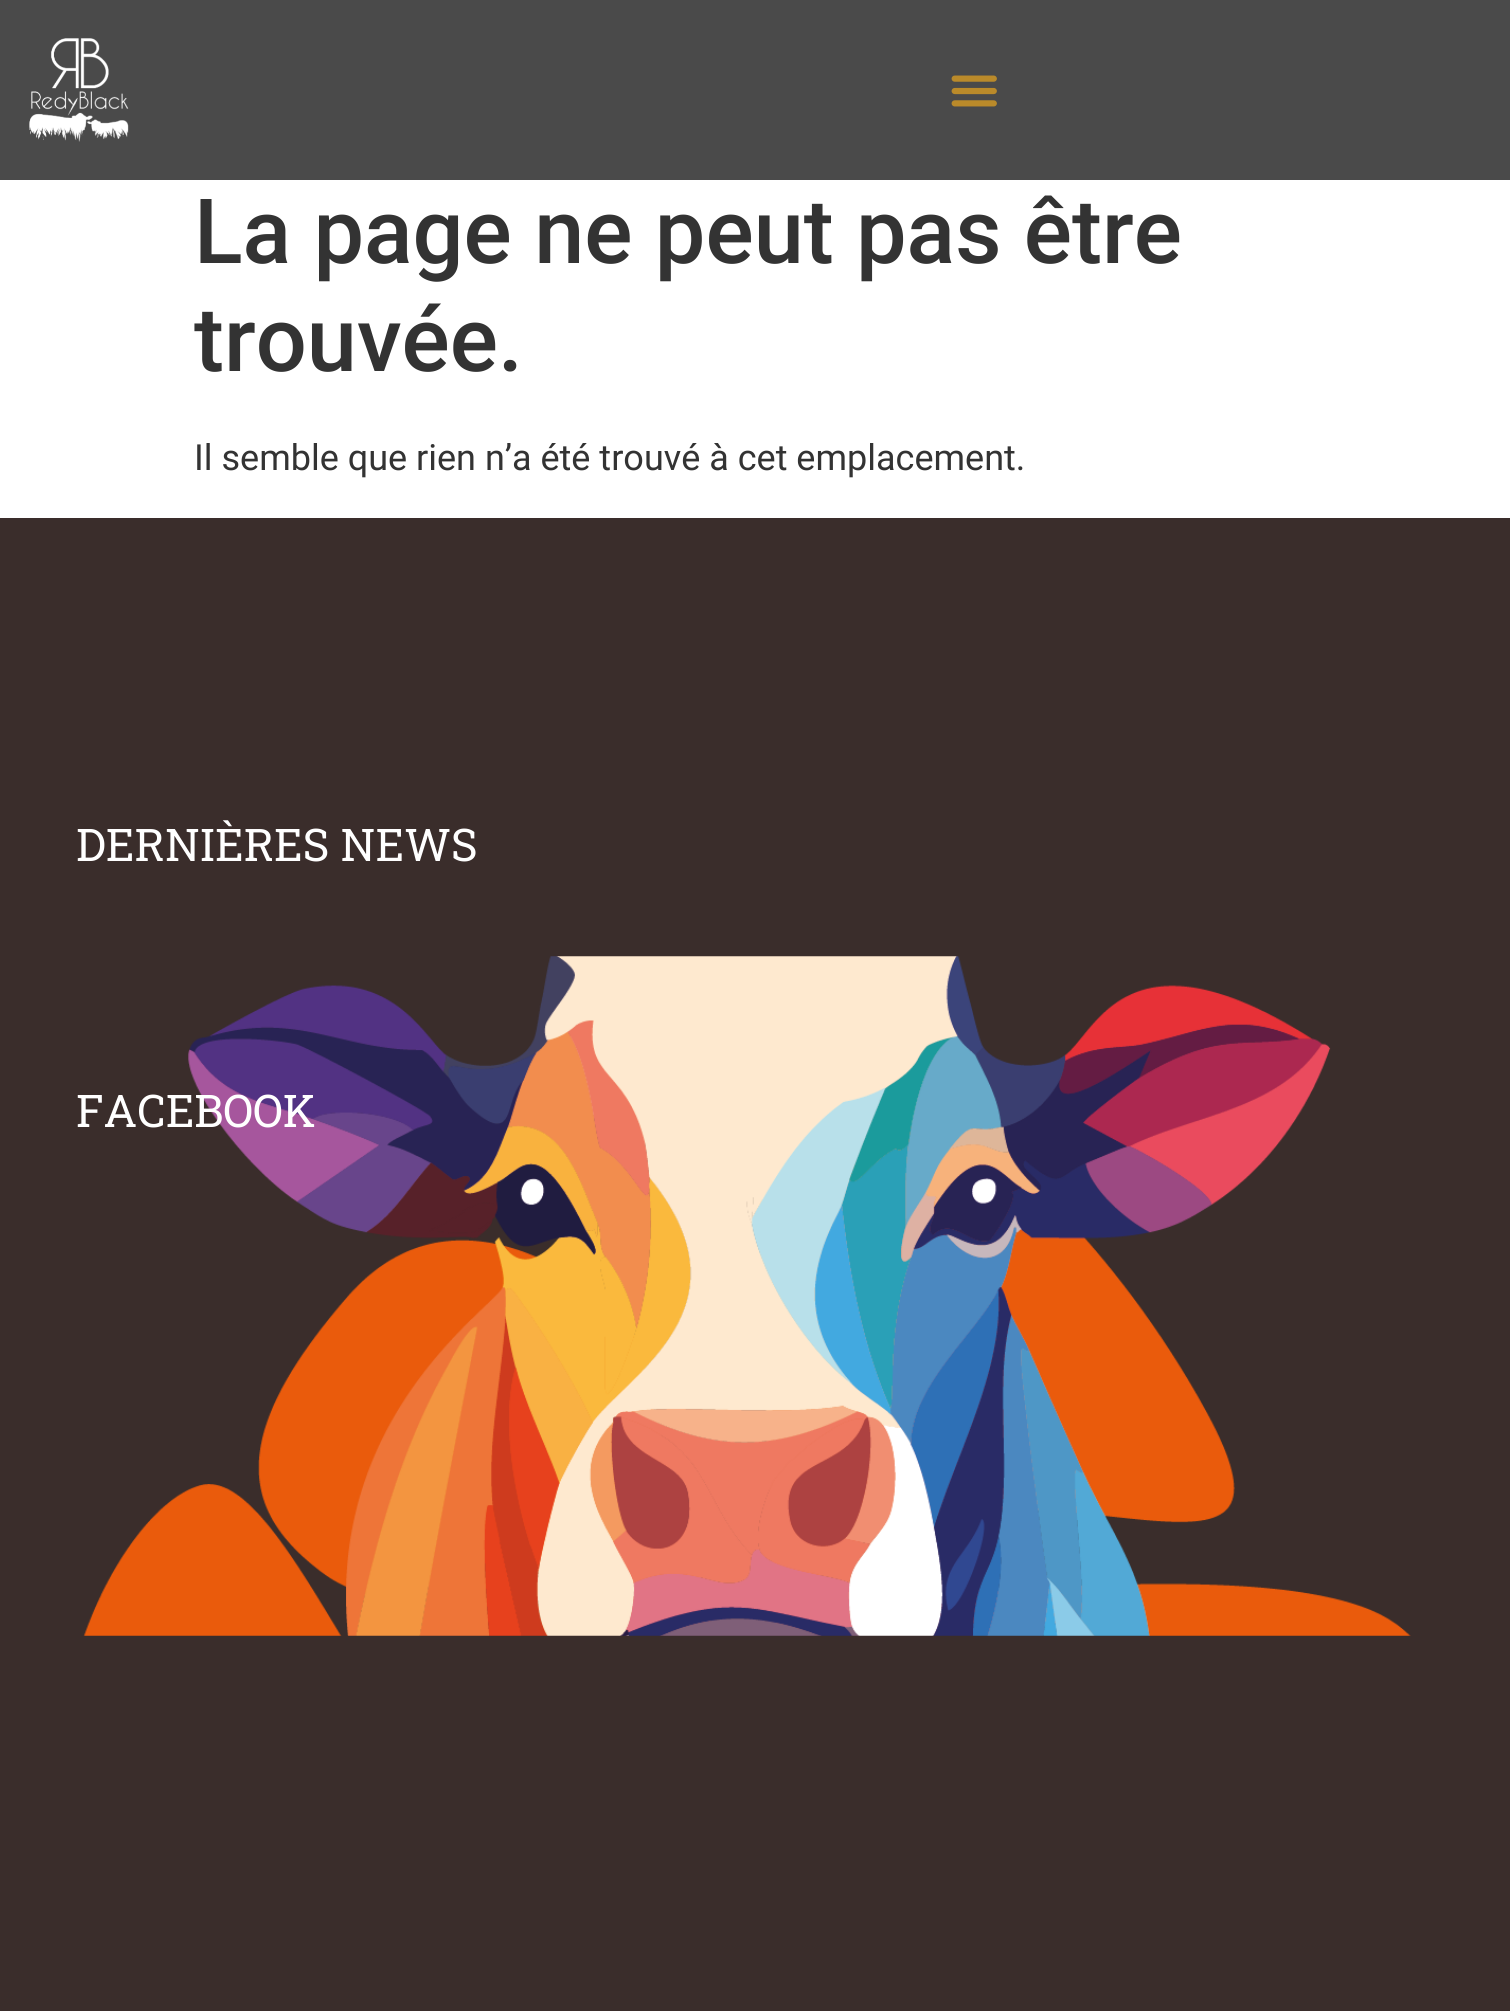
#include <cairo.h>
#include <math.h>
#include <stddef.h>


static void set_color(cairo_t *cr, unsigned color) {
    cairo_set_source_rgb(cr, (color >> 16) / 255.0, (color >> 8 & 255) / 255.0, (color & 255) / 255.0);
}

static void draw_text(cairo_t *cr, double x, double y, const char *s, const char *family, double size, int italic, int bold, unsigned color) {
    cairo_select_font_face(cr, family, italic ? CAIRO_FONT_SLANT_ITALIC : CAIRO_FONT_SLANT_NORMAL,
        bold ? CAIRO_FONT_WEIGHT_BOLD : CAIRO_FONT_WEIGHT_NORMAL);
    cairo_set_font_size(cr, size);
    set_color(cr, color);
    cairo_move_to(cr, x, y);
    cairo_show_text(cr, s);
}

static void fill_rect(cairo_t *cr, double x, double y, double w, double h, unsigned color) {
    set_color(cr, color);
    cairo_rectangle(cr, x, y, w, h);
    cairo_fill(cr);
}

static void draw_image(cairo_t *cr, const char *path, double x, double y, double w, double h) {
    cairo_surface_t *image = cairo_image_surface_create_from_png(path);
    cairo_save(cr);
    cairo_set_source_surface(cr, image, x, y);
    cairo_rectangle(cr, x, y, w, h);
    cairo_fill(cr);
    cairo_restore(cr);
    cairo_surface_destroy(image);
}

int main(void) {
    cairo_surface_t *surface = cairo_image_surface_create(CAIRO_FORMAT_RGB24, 1510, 2011);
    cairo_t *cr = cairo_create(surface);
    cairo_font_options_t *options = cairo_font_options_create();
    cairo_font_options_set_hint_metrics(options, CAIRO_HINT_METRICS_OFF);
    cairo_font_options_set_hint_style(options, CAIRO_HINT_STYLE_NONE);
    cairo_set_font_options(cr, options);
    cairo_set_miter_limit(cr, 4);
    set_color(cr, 0xFFFFFF);
    cairo_paint(cr);
    fill_rect(cr, 0, 0, 1510, 180, 0x4A4A4A);
    draw_image(cr, "assets/img1.png", 29, 38, 100, 104);
    draw_image(cr, "assets/img2.png", 951, 75, 46, 32);
    draw_text(cr, 194, 263, "La page ne peut pas être", "Roboto Medium", 90, 0, 0, 0x333333);
    draw_text(cr, 194, 371, "trouvée.", "Roboto Medium", 90, 0, 0, 0x333333);
    draw_text(cr, 194, 470, "Il semble que rien n’a été trouvé à cet emplacement.", "Roboto", 36, 0, 0, 0x333333);
    fill_rect(cr, 0, 518, 1510, 1493, 0x3A2D2B);
    draw_text(cr, 76, 861, "DERNIÈRES NEWS", "Roboto Slab", 45, 0, 0, 0xFFFFFF);
    draw_image(cr, "assets/img3.png", 83, 956, 1328, 680);
    draw_text(cr, 76, 1127, "FACEBOOK", "Roboto Slab", 45, 0, 0, 0xFFFFFF);
    cairo_surface_write_to_png(surface, "output.png");
    cairo_font_options_destroy(options);
    cairo_destroy(cr);
    cairo_surface_destroy(surface);
    return 0;
}
